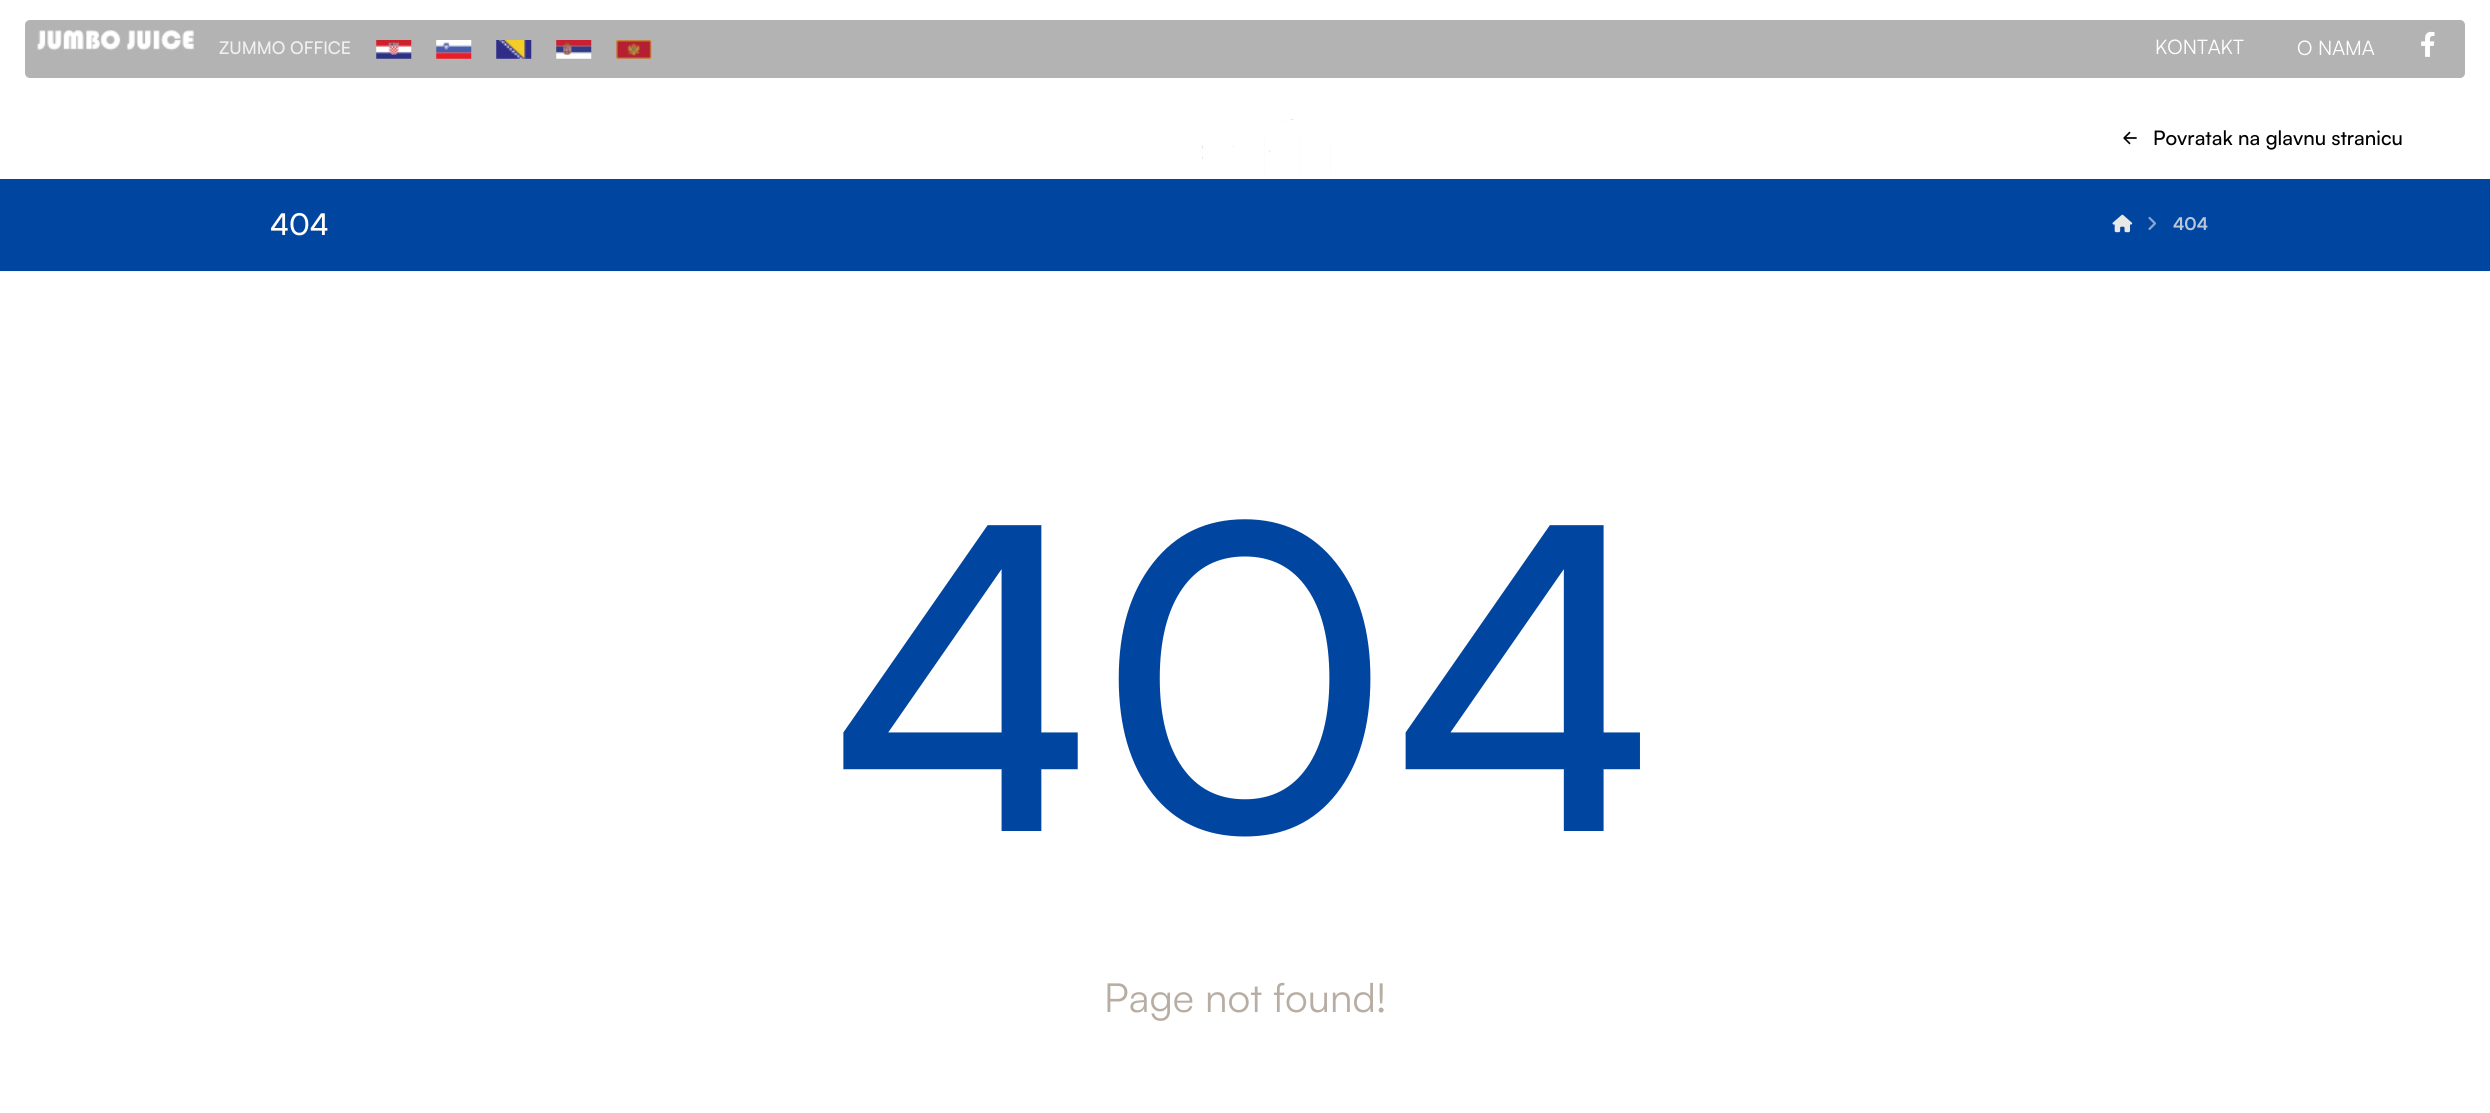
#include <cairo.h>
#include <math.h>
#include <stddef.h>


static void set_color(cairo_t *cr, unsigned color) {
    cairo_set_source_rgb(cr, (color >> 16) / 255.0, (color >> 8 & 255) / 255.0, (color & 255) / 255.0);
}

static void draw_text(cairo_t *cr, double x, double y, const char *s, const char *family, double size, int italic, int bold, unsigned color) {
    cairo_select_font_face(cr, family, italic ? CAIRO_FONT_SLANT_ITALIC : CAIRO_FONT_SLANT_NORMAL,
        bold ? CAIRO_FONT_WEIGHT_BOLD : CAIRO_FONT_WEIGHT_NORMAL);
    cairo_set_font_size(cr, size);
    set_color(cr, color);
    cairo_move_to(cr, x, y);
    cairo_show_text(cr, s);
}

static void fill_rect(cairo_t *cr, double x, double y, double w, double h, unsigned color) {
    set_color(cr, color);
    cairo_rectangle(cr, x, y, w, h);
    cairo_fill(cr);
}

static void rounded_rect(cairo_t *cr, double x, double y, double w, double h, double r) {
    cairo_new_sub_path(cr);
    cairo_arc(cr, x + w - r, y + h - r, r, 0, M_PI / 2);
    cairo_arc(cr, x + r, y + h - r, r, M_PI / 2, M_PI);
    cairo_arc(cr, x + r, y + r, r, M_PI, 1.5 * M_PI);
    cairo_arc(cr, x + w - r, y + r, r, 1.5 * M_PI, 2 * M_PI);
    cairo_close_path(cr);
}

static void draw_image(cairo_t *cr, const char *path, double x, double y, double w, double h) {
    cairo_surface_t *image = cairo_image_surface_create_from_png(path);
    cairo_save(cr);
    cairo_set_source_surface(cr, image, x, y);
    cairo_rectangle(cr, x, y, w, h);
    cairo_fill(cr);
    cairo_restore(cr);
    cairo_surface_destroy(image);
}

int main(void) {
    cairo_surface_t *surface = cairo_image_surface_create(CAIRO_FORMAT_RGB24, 2490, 1113);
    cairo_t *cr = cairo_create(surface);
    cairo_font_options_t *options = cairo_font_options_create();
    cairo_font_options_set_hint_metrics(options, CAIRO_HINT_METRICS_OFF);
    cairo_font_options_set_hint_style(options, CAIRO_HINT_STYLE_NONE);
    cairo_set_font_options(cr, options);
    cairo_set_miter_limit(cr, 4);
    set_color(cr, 0xFFFFFF);
    cairo_paint(cr);
    set_color(cr, 0xB3B3B3);
    rounded_rect(cr, 25, 20, 2440, 58, 5);
    cairo_fill(cr);
    draw_image(cr, "assets/img1.png", 37, 30, 157, 21);
    draw_text(cr, 219, 54, "ZUMMO OFFICE", "Satoshi Medium", 17.5, 0, 0, 0xF0F0F0);
    draw_image(cr, "assets/img2.png", 376, 40, 36, 19);
    draw_image(cr, "assets/img3.png", 436, 40, 36, 19);
    draw_image(cr, "assets/img4.png", 496, 40, 36, 19);
    draw_image(cr, "assets/img5.png", 556, 40, 36, 19);
    draw_image(cr, "assets/img6.png", 616, 40, 36, 19);
    draw_text(cr, 2155, 54, "KONTAKT", "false", 20, 0, 0, 0xFFFFFF);
    draw_text(cr, 2297, 55, "O NAMA", "false", 20, 0, 0, 0xFFFFFF);
    draw_image(cr, "assets/img7.png", 2421, 31, 14, 26);
    draw_image(cr, "assets/img8.png", 1201, 118, 130, 56);
    draw_image(cr, "assets/img9.png", 2123, 131, 14, 14);
    draw_text(cr, 2153, 145, "Povratak na glavnu stranicu", "Satoshi Medium", 20, 0, 0, 0x000000);
    fill_rect(cr, 0, 179, 2490, 92, 0x0045A0);
    fill_rect(cr, 0, 271, 2490, 1, 0xF4F4F4);
    draw_text(cr, 270, 235, "404", "Satoshi Medium", 30, 0, 0, 0xFFFFFF);
    draw_image(cr, "assets/img10.png", 2112, 214, 21, 19);
    draw_image(cr, "assets/img11.png", 2148, 216, 9, 14);
    draw_text(cr, 2173, 230, "404", "false", 17.5, 0, 1, 0xBAC7DA);
    draw_text(cr, 829, 831, "404", "Satoshi Medium", 423, 0, 0, 0x0045A0);
    draw_text(cr, 1104, 1012, "Page not found!", "false", 40, 0, 0, 0xB8ADA2);
    cairo_surface_write_to_png(surface, "output.png");
    cairo_font_options_destroy(options);
    cairo_destroy(cr);
    cairo_surface_destroy(surface);
    return 0;
}
